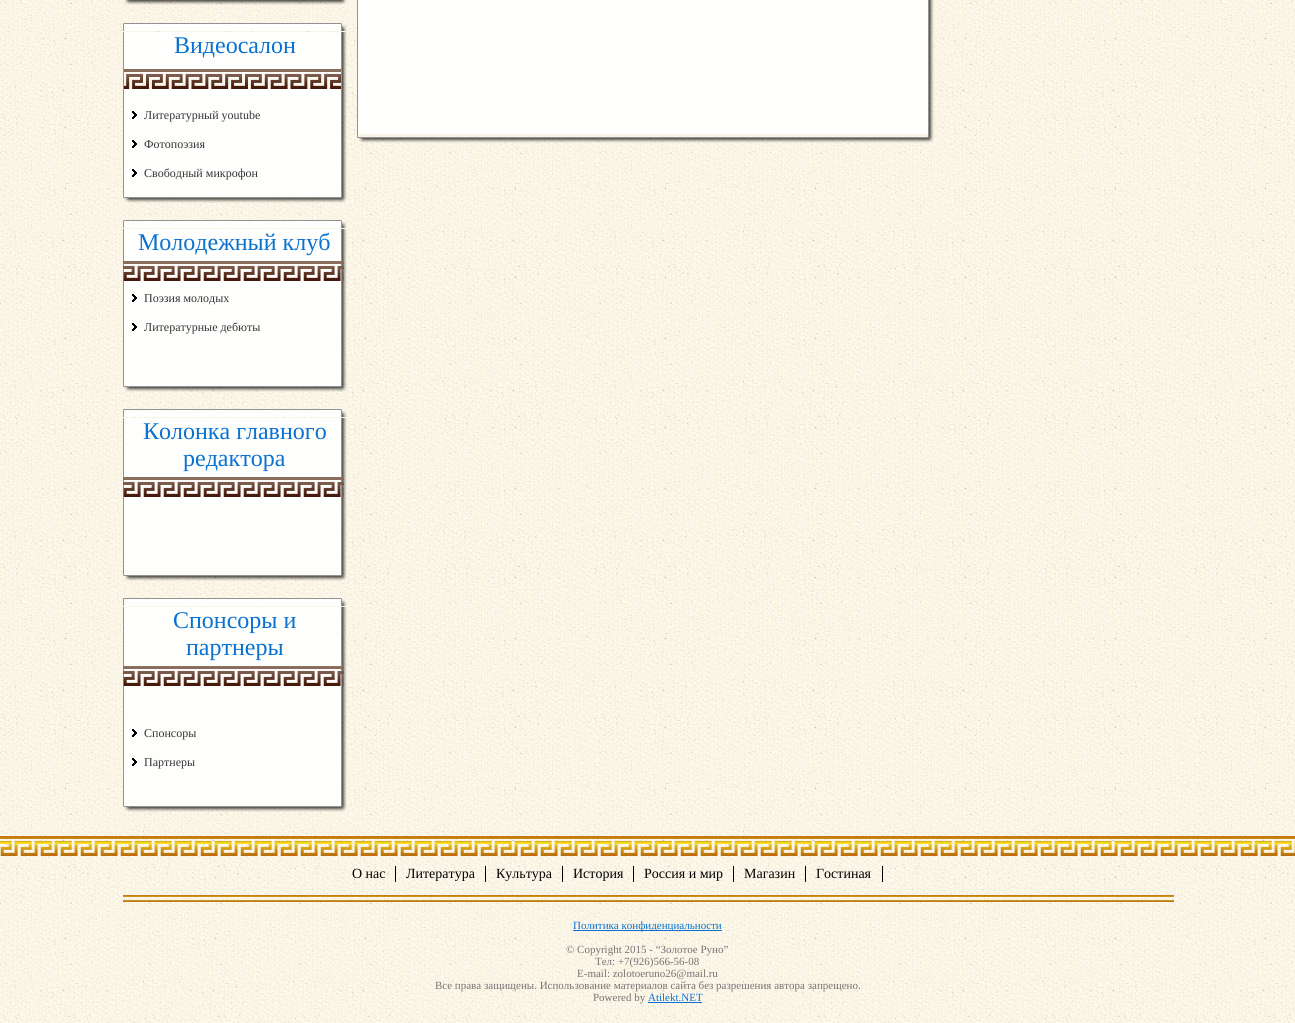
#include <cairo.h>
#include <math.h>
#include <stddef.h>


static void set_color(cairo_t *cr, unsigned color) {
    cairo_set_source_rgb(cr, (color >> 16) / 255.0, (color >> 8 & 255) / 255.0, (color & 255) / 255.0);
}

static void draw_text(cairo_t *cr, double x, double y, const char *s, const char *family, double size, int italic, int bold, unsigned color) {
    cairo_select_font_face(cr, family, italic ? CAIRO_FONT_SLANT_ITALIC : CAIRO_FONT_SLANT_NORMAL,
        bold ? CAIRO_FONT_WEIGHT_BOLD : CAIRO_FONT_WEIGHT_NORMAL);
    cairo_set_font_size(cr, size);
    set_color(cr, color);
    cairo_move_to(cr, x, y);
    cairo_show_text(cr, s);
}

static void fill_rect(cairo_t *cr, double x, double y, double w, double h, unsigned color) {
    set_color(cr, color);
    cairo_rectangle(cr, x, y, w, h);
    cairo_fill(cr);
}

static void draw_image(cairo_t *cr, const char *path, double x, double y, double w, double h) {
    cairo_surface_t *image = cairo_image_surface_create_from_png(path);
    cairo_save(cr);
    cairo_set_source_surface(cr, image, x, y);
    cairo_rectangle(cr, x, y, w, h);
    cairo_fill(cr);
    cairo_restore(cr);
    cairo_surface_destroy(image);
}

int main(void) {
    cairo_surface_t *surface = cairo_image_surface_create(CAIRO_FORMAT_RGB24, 1295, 1023);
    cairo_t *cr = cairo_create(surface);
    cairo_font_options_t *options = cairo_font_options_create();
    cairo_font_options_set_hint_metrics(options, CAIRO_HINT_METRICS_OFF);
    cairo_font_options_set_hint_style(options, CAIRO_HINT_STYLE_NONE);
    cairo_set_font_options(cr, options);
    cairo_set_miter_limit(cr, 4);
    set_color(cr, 0xFFFFFF);
    cairo_paint(cr);
    draw_image(cr, "assets/img1.png", 0, 0, 1295, 1023);
    draw_image(cr, "assets/img2.png", 124, 0, 223, 5);
    draw_image(cr, "assets/img3.png", 123, 23, 224, 8);
    draw_image(cr, "assets/img4.png", 123, 32, 224, 158);
    draw_text(cr, 174, 53, "Видеосалон", "Liberation Serif", 24, 0, 0, 0x0971D0);
    draw_image(cr, "assets/img5.png", 124, 69, 217, 20);
    draw_image(cr, "assets/img6.png", 132, 111, 5, 8);
    draw_text(cr, 144, 119, "Литературный youtube", "Liberation Serif", 12, 0, 0, 0x343434);
    draw_image(cr, "assets/img7.png", 132, 140, 5, 8);
    draw_text(cr, 144, 148, "Фотопоэзия", "Liberation Serif", 12, 0, 0, 0x343434);
    draw_image(cr, "assets/img8.png", 132, 169, 5, 8);
    draw_text(cr, 144, 177, "Свободный микрофон", "Liberation Serif", 12, 0, 0, 0x343434);
    draw_image(cr, "assets/img9.png", 123, 190, 224, 13);
    draw_image(cr, "assets/img10.png", 123, 220, 224, 8);
    draw_image(cr, "assets/img11.png", 123, 229, 224, 150);
    draw_text(cr, 138, 250, "Молодежный клуб", "Liberation Serif", 24, 0, 0, 0x0971D0);
    draw_image(cr, "assets/img12.png", 123, 261, 221, 20);
    draw_image(cr, "assets/img13.png", 132, 294, 5, 8);
    draw_text(cr, 144, 302, "Поэзия молодых", "Liberation Serif", 12, 0, 0, 0x343434);
    draw_image(cr, "assets/img6.png", 132, 323, 5, 8);
    draw_text(cr, 144, 331, "Литературные дебюты", "Liberation Serif", 12, 0, 0, 0x343434);
    draw_image(cr, "assets/img14.png", 123, 379, 224, 13);
    draw_image(cr, "assets/img15.png", 123, 409, 224, 8);
    draw_image(cr, "assets/img16.png", 123, 418, 224, 150);
    draw_text(cr, 143, 439, "Колонка главного", "Liberation Serif", 24, 0, 0, 0x0971D0);
    draw_text(cr, 183, 466, "редактора", "Liberation Serif", 24, 0, 0, 0x0971D0);
    draw_image(cr, "assets/img17.png", 123, 477, 221, 20);
    draw_image(cr, "assets/img18.png", 123, 568, 224, 13);
    draw_image(cr, "assets/img19.png", 123, 598, 224, 8);
    draw_image(cr, "assets/img20.png", 123, 607, 224, 192);
    draw_text(cr, 173, 628, "Спонсоры и", "Liberation Serif", 24, 0, 0, 0x0971D0);
    draw_text(cr, 186, 655, "партнеры", "Liberation Serif", 24, 0, 0, 0x0971D0);
    draw_image(cr, "assets/img21.png", 123, 666, 221, 20);
    draw_image(cr, "assets/img8.png", 132, 729, 5, 8);
    draw_text(cr, 144, 737, "Спонсоры", "Liberation Serif", 12, 0, 0, 0x343434);
    draw_image(cr, "assets/img22.png", 132, 758, 5, 8);
    draw_text(cr, 144, 766, "Партнеры", "Liberation Serif", 12, 0, 0, 0x343434);
    draw_image(cr, "assets/img23.png", 123, 799, 224, 13);
    draw_image(cr, "assets/img24.png", 357, 0, 577, 134);
    draw_image(cr, "assets/img25.png", 357, 134, 577, 9);
    draw_image(cr, "assets/img26.png", 0, 836, 1295, 20);
    fill_rect(cr, 395, 866, 1, 16, 0x000000);
    draw_text(cr, 352, 878, "О нас", "Liberation Serif", 14, 0, 0, 0x000000);
    fill_rect(cr, 485, 866, 1, 16, 0x000000);
    draw_text(cr, 406, 878, "Литература", "Liberation Serif", 14, 0, 0, 0x000000);
    fill_rect(cr, 562, 866, 1, 16, 0x000000);
    draw_text(cr, 496, 878, "Культура", "Liberation Serif", 14, 0, 0, 0x000000);
    fill_rect(cr, 633, 866, 1, 16, 0x000000);
    draw_text(cr, 573, 878, "История", "Liberation Serif", 14, 0, 0, 0x000000);
    fill_rect(cr, 733, 866, 1, 16, 0x000000);
    draw_text(cr, 644, 878, "Россия и мир", "Liberation Serif", 14, 0, 0, 0x000000);
    fill_rect(cr, 805, 866, 1, 16, 0x000000);
    draw_text(cr, 744, 878, "Магазин", "Liberation Serif", 14, 0, 0, 0x000000);
    fill_rect(cr, 882, 866, 1, 16, 0x000000);
    draw_text(cr, 816, 878, "Гостиная", "Liberation Serif", 14, 0, 0, 0x000000);
    draw_image(cr, "assets/img27.png", 123, 895, 1051, 7);
    fill_rect(cr, 573, 930, 149, 1, 0x0971D0);
    draw_text(cr, 573, 929, "Политика конфиденциальности", "Liberation Serif", 11, 0, 0, 0x0971D0);
    draw_text(cr, 566, 953, "© Copyright 2015 - “Золотое Руно”", "Liberation Serif", 11, 0, 0, 0x747474);
    draw_text(cr, 595, 965, "Тел: +7(926)566-56-08", "Liberation Serif", 11, 0, 0, 0x747474);
    draw_text(cr, 577, 977, "E-mail: zolotoeruno26@mail.ru", "Liberation Serif", 11, 0, 0, 0x747474);
    draw_text(cr, 435, 989, "Все права защищены. Использование материалов сайта без разрешения автора запрещено.", "Liberation Serif", 11, 0, 0, 0x747474);
    draw_text(cr, 593, 1001, "Powered by", "Liberation Serif", 11, 0, 0, 0x747474);
    draw_text(cr, 648, 1001, "Atilekt.NET", "Liberation Serif", 11, 0, 0, 0x0971D0);
    fill_rect(cr, 648, 1002, 54, 1, 0x0971D0);
    cairo_surface_write_to_png(surface, "output.png");
    cairo_font_options_destroy(options);
    cairo_destroy(cr);
    cairo_surface_destroy(surface);
    return 0;
}
